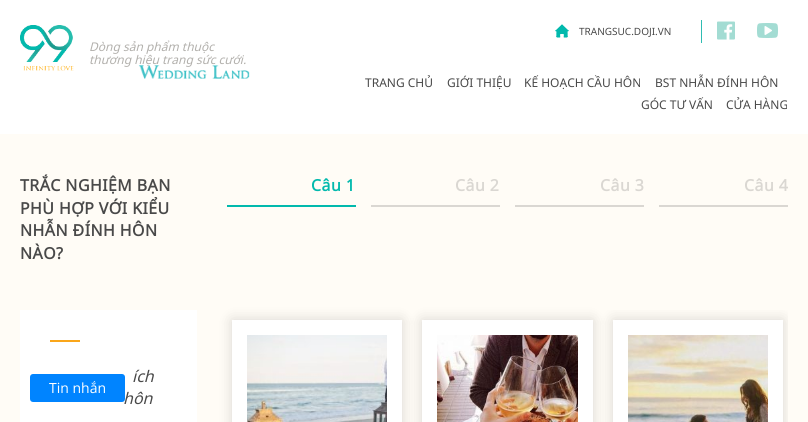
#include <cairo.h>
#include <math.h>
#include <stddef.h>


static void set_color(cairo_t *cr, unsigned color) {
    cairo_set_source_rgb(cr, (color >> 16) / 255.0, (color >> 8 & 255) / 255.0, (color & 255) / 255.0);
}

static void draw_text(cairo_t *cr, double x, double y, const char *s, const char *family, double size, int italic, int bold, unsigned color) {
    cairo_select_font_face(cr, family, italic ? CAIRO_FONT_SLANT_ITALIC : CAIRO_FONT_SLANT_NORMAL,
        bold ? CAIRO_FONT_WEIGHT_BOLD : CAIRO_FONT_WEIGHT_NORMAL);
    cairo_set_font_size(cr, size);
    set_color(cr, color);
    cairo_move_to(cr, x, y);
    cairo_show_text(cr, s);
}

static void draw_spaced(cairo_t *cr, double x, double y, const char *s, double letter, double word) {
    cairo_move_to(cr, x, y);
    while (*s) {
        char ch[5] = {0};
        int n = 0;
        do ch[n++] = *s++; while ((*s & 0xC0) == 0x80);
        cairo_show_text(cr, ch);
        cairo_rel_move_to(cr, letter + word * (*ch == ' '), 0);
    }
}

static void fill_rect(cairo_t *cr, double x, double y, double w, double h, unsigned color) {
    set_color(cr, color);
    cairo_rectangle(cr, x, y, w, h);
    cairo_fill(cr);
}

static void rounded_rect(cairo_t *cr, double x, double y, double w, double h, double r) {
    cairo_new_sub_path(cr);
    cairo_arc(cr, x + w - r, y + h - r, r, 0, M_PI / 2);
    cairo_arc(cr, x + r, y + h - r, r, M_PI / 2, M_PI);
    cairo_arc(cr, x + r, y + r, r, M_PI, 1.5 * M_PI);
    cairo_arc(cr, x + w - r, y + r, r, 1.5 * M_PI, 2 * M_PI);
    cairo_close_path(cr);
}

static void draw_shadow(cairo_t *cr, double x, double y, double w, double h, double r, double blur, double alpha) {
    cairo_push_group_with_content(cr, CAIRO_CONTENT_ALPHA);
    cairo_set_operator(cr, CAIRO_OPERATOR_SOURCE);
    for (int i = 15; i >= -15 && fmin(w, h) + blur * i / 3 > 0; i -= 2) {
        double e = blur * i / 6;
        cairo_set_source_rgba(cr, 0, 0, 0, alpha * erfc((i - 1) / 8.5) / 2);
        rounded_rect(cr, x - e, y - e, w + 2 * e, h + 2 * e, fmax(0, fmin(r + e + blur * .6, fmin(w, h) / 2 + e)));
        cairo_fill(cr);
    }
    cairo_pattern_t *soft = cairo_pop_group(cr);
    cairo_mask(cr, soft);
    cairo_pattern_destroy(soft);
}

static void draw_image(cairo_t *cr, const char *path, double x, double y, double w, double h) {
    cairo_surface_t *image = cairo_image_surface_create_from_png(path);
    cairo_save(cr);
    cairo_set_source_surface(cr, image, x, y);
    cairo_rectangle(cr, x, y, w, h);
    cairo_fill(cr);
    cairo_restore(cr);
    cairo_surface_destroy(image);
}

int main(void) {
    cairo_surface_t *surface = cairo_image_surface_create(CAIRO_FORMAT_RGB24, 808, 422);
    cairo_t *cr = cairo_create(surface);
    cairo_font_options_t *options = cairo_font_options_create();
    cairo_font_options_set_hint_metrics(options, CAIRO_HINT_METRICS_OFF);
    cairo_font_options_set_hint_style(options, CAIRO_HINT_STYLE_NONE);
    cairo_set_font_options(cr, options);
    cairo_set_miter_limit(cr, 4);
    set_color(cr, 0xFFFFFF);
    cairo_paint(cr);
    fill_rect(cr, 701, 20, 1, 23, 0x2FBCB2);
    draw_image(cr, "assets/img1.png", 555, 24, 14, 14);
    draw_text(cr, 579, 35, "TRANGSUC.DOJI.VN", "Noto Sans", 10, 0, 0, 0x494949);
    draw_image(cr, "assets/img2.png", 717, 21, 18, 19);
    draw_image(cr, "assets/img3.png", 757, 23, 21, 15);
    draw_image(cr, "assets/img4.png", 20, 25, 54, 46);
    draw_text(cr, 89, 51, "Dòng sản phẩm thuộc", "Noto Sans", 12, 1, 0, 0xB2B0AC);
    draw_text(cr, 89, 64, "thương hiệu trang sức cưới.", "Noto Sans", 12, 1, 0, 0xB2B0AC);
    draw_image(cr, "assets/img5.png", 138, 65, 112, 14);
    draw_text(cr, 365, 87, "TRANG CHỦ", "Noto Sans", 12, 0, 0, 0x494949);
    draw_text(cr, 447, 87, "GIỚI THIỆU", "Noto Sans", 12, 0, 0, 0x494949);
    draw_text(cr, 524, 87, "KẾ HOẠCH CẦU HÔN", "Noto Sans", 12, 0, 0, 0x494949);
    draw_text(cr, 655, 87, "BST NHẪN ĐÍNH HÔN", "Noto Sans", 12, 0, 0, 0x494949);
    draw_text(cr, 641, 109, "GÓC TƯ VẤN", "Noto Sans", 12, 0, 0, 0x494949);
    draw_text(cr, 726, 109, "CỬA HÀNG", "Noto Sans", 12, 0, 0, 0x494949);
    fill_rect(cr, 0, 134, 808, 288, 0xFFFCF6);
    cairo_select_font_face(cr, "Noto Sans", CAIRO_FONT_SLANT_NORMAL, CAIRO_FONT_WEIGHT_BOLD);
    cairo_set_font_size(cr, 16);
    set_color(cr, 0x494949);
    draw_spaced(cr, 20, 191, "TRẮC NGHIỆM BẠN", 0.4, 0);
    draw_spaced(cr, 20, 214, "PHÙ HỢP VỚI KIỂU", 0.4, 0);
    draw_spaced(cr, 20, 236, "NHẪN ĐÍNH HÔN", 0.4, 0);
    draw_spaced(cr, 20, 259, "NÀO?", 0.4, 0);
    set_color(cr, 0x02B9AD);
    draw_spaced(cr, 311, 191, "Câu 1", 0.4, 0);
    fill_rect(cr, 227, 205, 129, 2, 0x02B9AD);
    set_color(cr, 0xDAD7D2);
    draw_spaced(cr, 455, 191, "Câu 2", 0.4, 0);
    fill_rect(cr, 371, 205, 129, 2, 0xDAD7D2);
    draw_spaced(cr, 600, 191, "Câu 3", 0.4, 0);
    fill_rect(cr, 515, 205, 129, 2, 0xDAD7D2);
    draw_spaced(cr, 744, 191, "Câu 4", 0.4, 0);
    fill_rect(cr, 659, 205, 129, 2, 0xDAD7D2);
    fill_rect(cr, 20, 310, 177, 112, 0xFFFFFF);
    fill_rect(cr, 50, 340, 30, 2, 0xFAA61A);
    draw_text(cr, 132, 382, "ích", "Noto Sans", 16, 1, 0, 0x494949);
    draw_text(cr, 123, 404, "hôn", "Noto Sans", 16, 1, 0, 0x494949);
    set_color(cr, 0x000000);
    draw_shadow(cr, 232, 320, 170, 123, 0, 7, 0.15);
    fill_rect(cr, 232, 320, 170, 102, 0xFFFFFF);
    draw_image(cr, "assets/img6.png", 247, 335, 140, 87);
    set_color(cr, 0x000000);
    draw_shadow(cr, 422, 320, 171, 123, 0, 7, 0.15);
    fill_rect(cr, 422, 320, 171, 102, 0xFFFFFF);
    draw_image(cr, "assets/img7.png", 437, 335, 141, 87);
    cairo_save(cr);
    cairo_rectangle(cr, 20, 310, 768, 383);
    cairo_clip(cr);
    set_color(cr, 0x000000);
    draw_shadow(cr, 613, 320, 170, 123, 0, 7, 0.15);
    cairo_restore(cr);
    fill_rect(cr, 613, 320, 170, 102, 0xFFFFFF);
    draw_image(cr, "assets/img8.png", 628, 335, 140, 87);
    set_color(cr, 0x0084FF);
    rounded_rect(cr, 30, 374, 95, 28, 3);
    cairo_fill(cr);
    draw_text(cr, 49, 393, "Tin nhắn", "Open Sans", 14, 0, 0, 0xFFFFFF);
    cairo_surface_write_to_png(surface, "output.png");
    cairo_font_options_destroy(options);
    cairo_destroy(cr);
    cairo_surface_destroy(surface);
    return 0;
}
